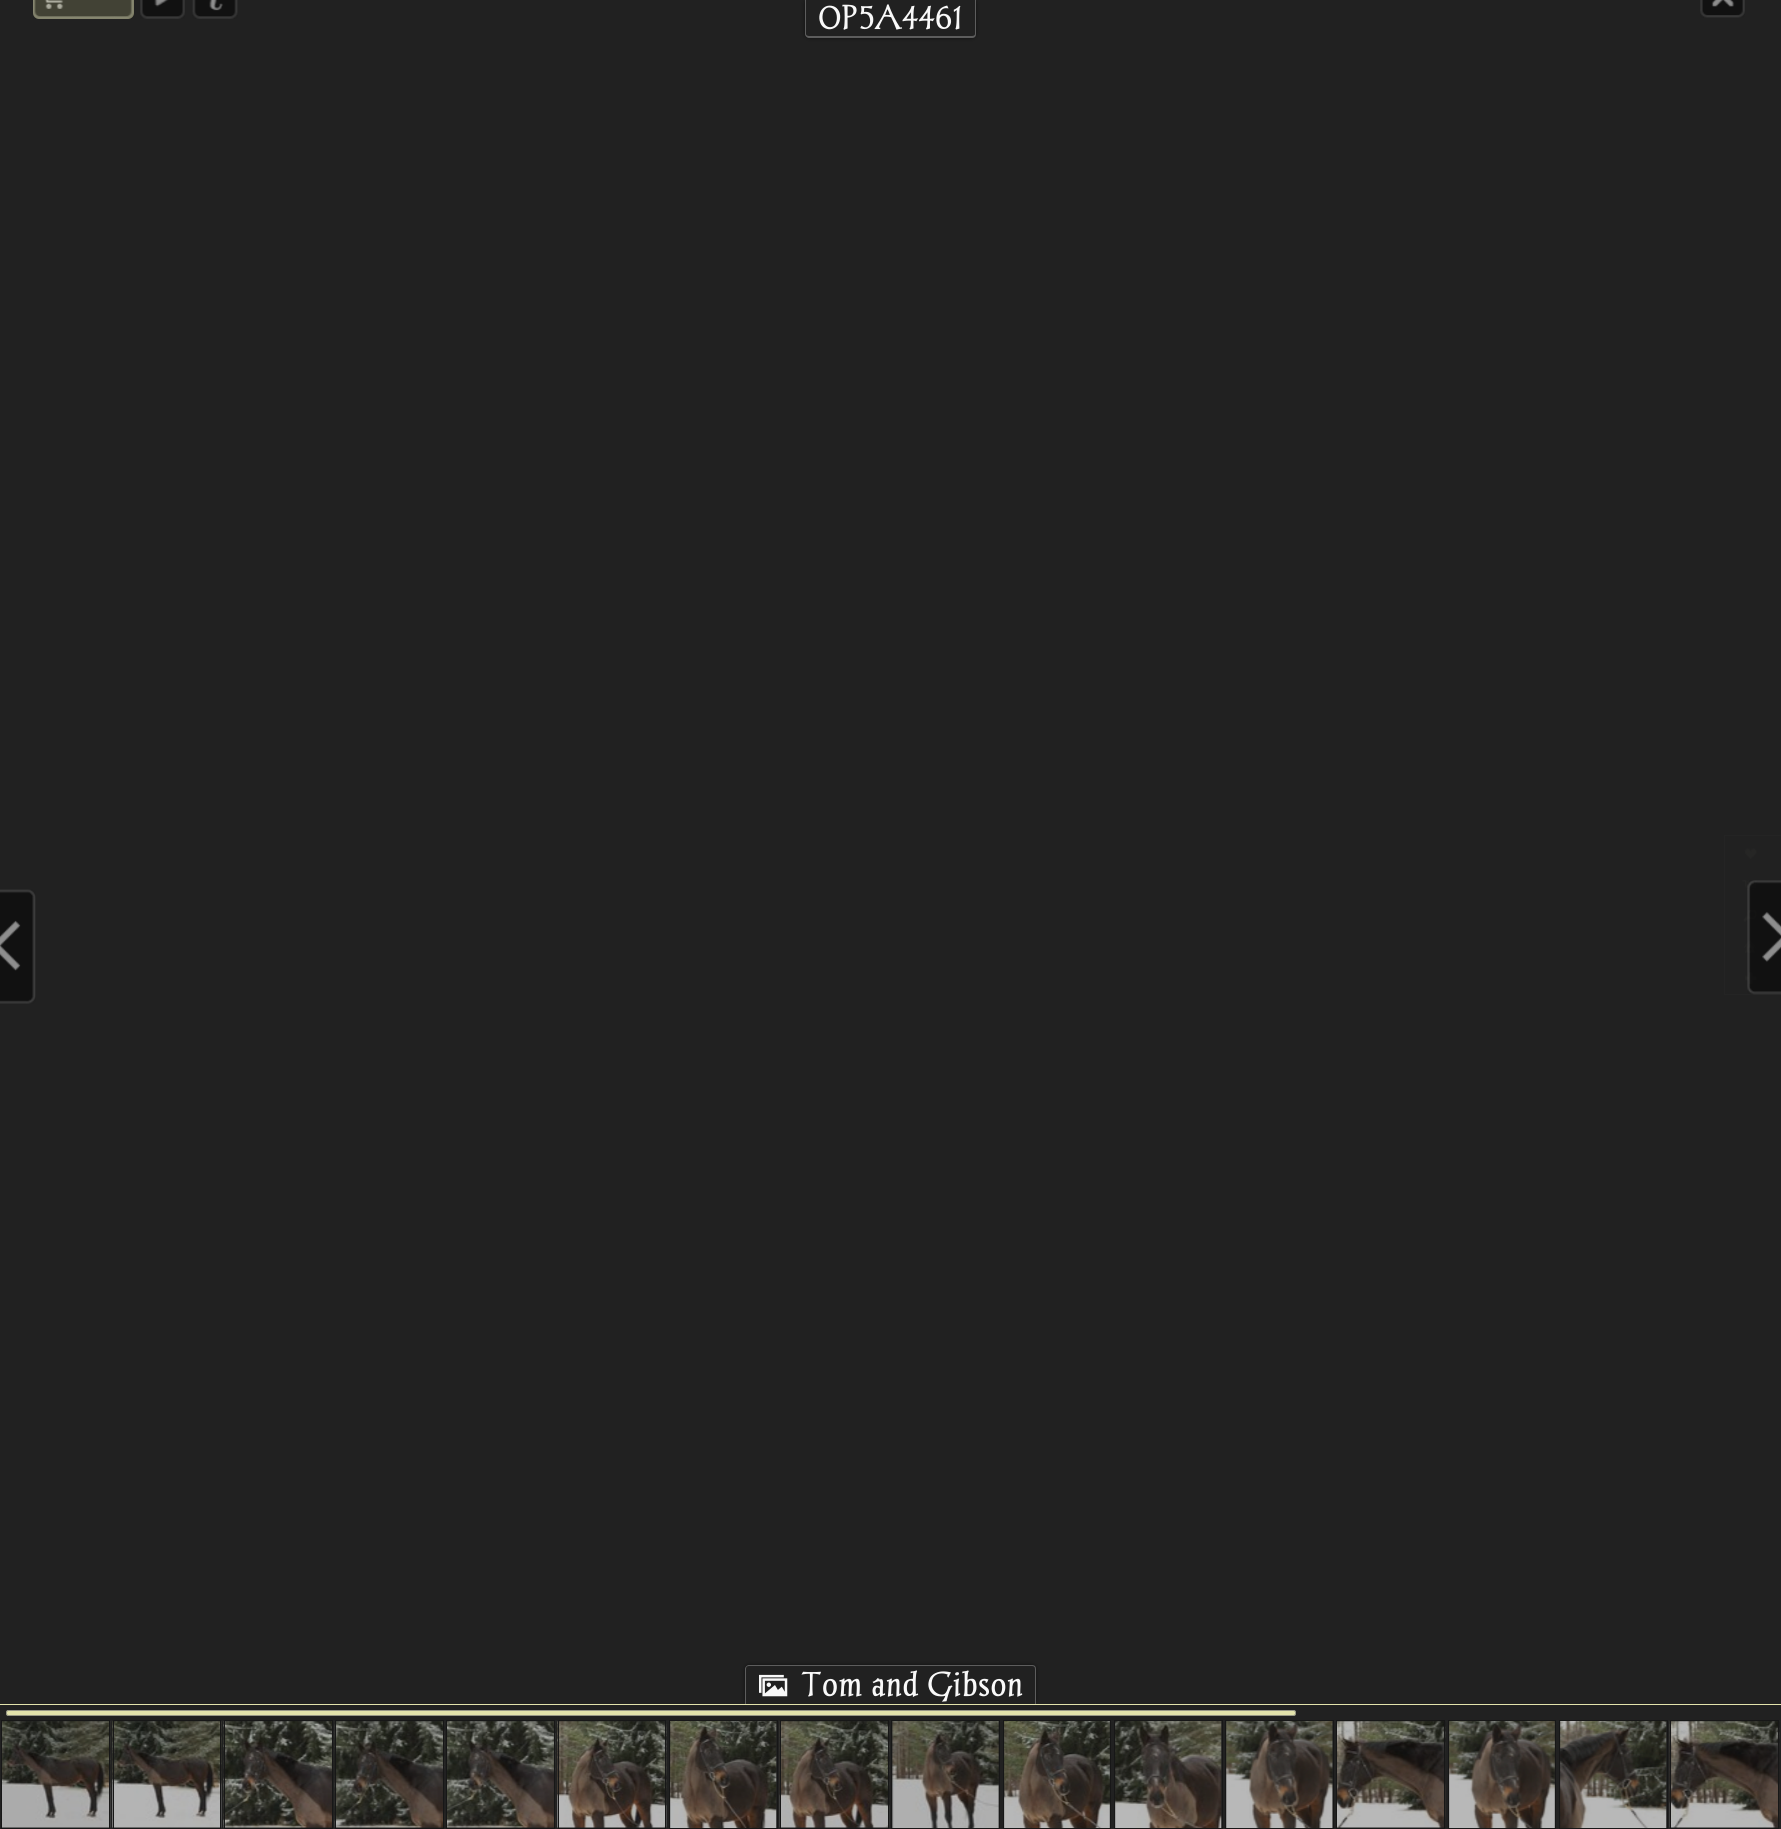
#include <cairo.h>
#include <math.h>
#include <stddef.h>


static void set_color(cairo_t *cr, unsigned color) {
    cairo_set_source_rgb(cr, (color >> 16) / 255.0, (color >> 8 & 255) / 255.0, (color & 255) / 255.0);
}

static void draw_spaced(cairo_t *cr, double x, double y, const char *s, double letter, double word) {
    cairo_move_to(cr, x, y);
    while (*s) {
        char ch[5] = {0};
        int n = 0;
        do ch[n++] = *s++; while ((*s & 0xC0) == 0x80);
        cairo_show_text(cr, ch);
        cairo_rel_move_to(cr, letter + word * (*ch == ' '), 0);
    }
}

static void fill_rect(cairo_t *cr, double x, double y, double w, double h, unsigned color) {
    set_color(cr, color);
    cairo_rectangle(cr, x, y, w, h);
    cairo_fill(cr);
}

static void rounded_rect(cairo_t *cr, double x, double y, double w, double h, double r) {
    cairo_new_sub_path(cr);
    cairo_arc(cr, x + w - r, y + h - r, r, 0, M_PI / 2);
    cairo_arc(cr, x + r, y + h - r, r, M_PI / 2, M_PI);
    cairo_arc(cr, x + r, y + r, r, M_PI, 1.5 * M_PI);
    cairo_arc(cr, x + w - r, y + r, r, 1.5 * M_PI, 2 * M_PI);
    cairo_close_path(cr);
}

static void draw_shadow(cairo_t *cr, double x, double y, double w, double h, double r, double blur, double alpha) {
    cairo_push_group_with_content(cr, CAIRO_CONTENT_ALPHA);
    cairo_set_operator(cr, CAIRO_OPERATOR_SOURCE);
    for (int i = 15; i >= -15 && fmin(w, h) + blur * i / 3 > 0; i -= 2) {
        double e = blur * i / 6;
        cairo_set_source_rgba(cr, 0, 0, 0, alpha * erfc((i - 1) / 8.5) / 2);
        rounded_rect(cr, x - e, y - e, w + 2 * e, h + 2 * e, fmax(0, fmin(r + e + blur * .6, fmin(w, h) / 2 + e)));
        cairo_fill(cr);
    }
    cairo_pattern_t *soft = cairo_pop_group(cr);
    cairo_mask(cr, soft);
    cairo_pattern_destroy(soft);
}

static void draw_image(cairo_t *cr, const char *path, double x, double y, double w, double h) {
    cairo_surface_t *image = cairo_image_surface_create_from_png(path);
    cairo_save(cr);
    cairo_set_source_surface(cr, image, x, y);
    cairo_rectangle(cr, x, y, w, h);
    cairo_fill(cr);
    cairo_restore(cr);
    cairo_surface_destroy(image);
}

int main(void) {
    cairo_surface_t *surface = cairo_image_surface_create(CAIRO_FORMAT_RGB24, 1781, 1829);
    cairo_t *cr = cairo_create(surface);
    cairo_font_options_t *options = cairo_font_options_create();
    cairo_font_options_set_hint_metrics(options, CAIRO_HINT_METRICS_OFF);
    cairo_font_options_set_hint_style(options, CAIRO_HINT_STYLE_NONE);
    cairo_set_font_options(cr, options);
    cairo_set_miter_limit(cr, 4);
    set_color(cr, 0x212121);
    cairo_paint(cr);
    set_color(cr, 0x828267);
    rounded_rect(cr, 33, -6, 101, 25, 6);
    cairo_fill(cr);
    draw_image(cr, "assets/img1.png", 33, 0, 101, 19);
    draw_image(cr, "assets/img2.png", 140, 0, 45, 19);
    draw_image(cr, "assets/img3.png", 192, 0, 46, 19);
    set_color(cr, 0x000000);
    draw_shadow(cr, 805, -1, 171, 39, 4, 2, 0.5);
    set_color(cr, 0x212121);
    cairo_new_path(cr);
    cairo_move_to(cr, 805, -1);
    cairo_line_to(cr, 976, -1);
    cairo_line_to(cr, 976, 34);
    cairo_curve_to(cr, 976, 36, 974, 38, 972, 38);
    cairo_line_to(cr, 809, 38);
    cairo_curve_to(cr, 807, 38, 805, 36, 805, 34);
    cairo_close_path(cr);
    cairo_fill(cr);
    set_color(cr, 0x5D5D5D);
    cairo_set_fill_rule(cr, CAIRO_FILL_RULE_EVEN_ODD);
    cairo_new_path(cr);
    cairo_move_to(cr, 805, -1);
    cairo_line_to(cr, 976, -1);
    cairo_line_to(cr, 976, 34);
    cairo_curve_to(cr, 976, 36, 975, 38, 972, 38);
    cairo_line_to(cr, 809, 38);
    cairo_curve_to(cr, 807, 38, 805, 36, 805, 34);
    cairo_close_path(cr);
    cairo_move_to(cr, 806, -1);
    cairo_line_to(cr, 975, -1);
    cairo_line_to(cr, 975, 34);
    cairo_curve_to(cr, 975, 35, 974, 36, 972, 36);
    cairo_line_to(cr, 809, 36);
    cairo_curve_to(cr, 807, 36, 806, 35, 806, 34);
    cairo_close_path(cr);
    cairo_fill(cr);
    cairo_select_font_face(cr, "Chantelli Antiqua", CAIRO_FONT_SLANT_NORMAL, CAIRO_FONT_WEIGHT_BOLD);
    cairo_set_font_size(cr, 27.5);
    set_color(cr, 0xF9F9F9);
    draw_spaced(cr, 818, 29, "0P5A4461", 0.5, 0);
    draw_image(cr, "assets/img4.png", 1700, 0, 45, 18);
    draw_image(cr, "assets/img5.png", 0, 889, 36, 115);
    fill_rect(cr, 1724, 994, 57, 1, 0x242424);
    draw_image(cr, "assets/img24.png", 1742, 879, 15, 12);
    draw_image(cr, "assets/img25.png", 1743, 909, 14, 13);
    draw_image(cr, "assets/img26.png", 1743, 940, 14, 13);
    draw_image(cr, "assets/img27.png", 1744, 971, 13, 14);
    draw_image(cr, "assets/img6.png", 1747, 880, 34, 115);
    set_color(cr, 0x000000);
    draw_shadow(cr, 745, 1665, 291, 39, 4, 2, 0.5);
    set_color(cr, 0x212121);
    cairo_new_path(cr);
    cairo_move_to(cr, 749, 1665);
    cairo_line_to(cr, 1032, 1665);
    cairo_curve_to(cr, 1034, 1665, 1036, 1667, 1036, 1669);
    cairo_line_to(cr, 1036, 1704);
    cairo_line_to(cr, 745, 1704);
    cairo_line_to(cr, 745, 1669);
    cairo_curve_to(cr, 745, 1667, 747, 1665, 749, 1665);
    cairo_close_path(cr);
    cairo_fill(cr);
    set_color(cr, 0x5D5D5D);
    cairo_new_path(cr);
    cairo_move_to(cr, 749, 1665);
    cairo_line_to(cr, 1032, 1665);
    cairo_curve_to(cr, 1035, 1665, 1036, 1667, 1036, 1669);
    cairo_line_to(cr, 1036, 1704);
    cairo_line_to(cr, 745, 1704);
    cairo_line_to(cr, 745, 1669);
    cairo_curve_to(cr, 745, 1667, 747, 1665, 749, 1665);
    cairo_close_path(cr);
    cairo_move_to(cr, 749, 1666);
    cairo_line_to(cr, 1032, 1666);
    cairo_curve_to(cr, 1034, 1666, 1035, 1667, 1035, 1669);
    cairo_line_to(cr, 1035, 1704);
    cairo_line_to(cr, 746, 1704);
    cairo_line_to(cr, 746, 1669);
    cairo_curve_to(cr, 746, 1667, 747, 1666, 749, 1666);
    cairo_close_path(cr);
    cairo_fill(cr);
    cairo_select_font_face(cr, "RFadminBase", CAIRO_FONT_SLANT_NORMAL, CAIRO_FONT_WEIGHT_BOLD);
    set_color(cr, 0xF9F9F9);
    draw_spaced(cr, 759, 1698, ".", 0.5, 0);
    cairo_select_font_face(cr, "Chantelli Antiqua", CAIRO_FONT_SLANT_NORMAL, CAIRO_FONT_WEIGHT_BOLD);
    draw_spaced(cr, 801, 1696, "Tom and Gibson", 0.5, 0);
    cairo_set_source_rgba(cr, 0.133, 0.133, 0.133, 0.98);
    cairo_rectangle(cr, 746, 1705, 289, 2);
    cairo_fill(cr);
    fill_rect(cr, 0, 1704, 1781, 1, 0xE3E3AC);
    fill_rect(cr, 0, 1721, 1781, 1, 0x777777);
    set_color(cr, 0xE3E3AC);
    rounded_rect(cr, 6, 1710, 1290, 6, 2.5);
    cairo_fill(cr);
    rounded_rect(cr, 6.5, 1710.5, 1289, 5, 2);
    cairo_set_source_rgba(cr, 0.467, 0.467, 0.467, 0.7);
    cairo_set_line_width(cr, 1);
    cairo_stroke(cr);
    cairo_set_source_rgba(cr, 0.133, 0.133, 0.133, 0.98);
    cairo_rectangle(cr, 0, 1721, 1781, 1);
    cairo_fill(cr);
    draw_image(cr, "assets/img28.png", 25, 1737, 30, 31);
    draw_image(cr, "assets/img7.png", 2, 1721, 109, 107);
    cairo_rectangle(cr, 1.5, 1720.5, 108, 108);
    set_color(cr, 0x171717);
    cairo_stroke(cr);
    draw_image(cr, "assets/img8.png", 112, 1721, 110, 107);
    cairo_rectangle(cr, 113.5, 1720.5, 107, 108);
    cairo_stroke(cr);
    draw_image(cr, "assets/img9.png", 223, 1721, 111, 107);
    cairo_rectangle(cr, 224.5, 1720.5, 108, 108);
    cairo_stroke(cr);
    draw_image(cr, "assets/img10.png", 334, 1721, 111, 107);
    cairo_rectangle(cr, 335.5, 1720.5, 108, 108);
    cairo_stroke(cr);
    draw_image(cr, "assets/img11.png", 447, 1721, 109, 107);
    cairo_rectangle(cr, 446.5, 1720.5, 108, 108);
    cairo_stroke(cr);
    draw_image(cr, "assets/img12.png", 557, 1721, 110, 107);
    cairo_rectangle(cr, 558.5, 1720.5, 107, 108);
    cairo_stroke(cr);
    draw_image(cr, "assets/img13.png", 670, 1721, 107, 107);
    cairo_rectangle(cr, 669.5, 1720.5, 108, 108);
    cairo_stroke(cr);
    draw_image(cr, "assets/img14.png", 779, 1721, 111, 107);
    cairo_rectangle(cr, 780.5, 1720.5, 108, 108);
    cairo_stroke(cr);
    draw_image(cr, "assets/img15.png", 892, 1721, 107, 107);
    cairo_rectangle(cr, 891.5, 1720.5, 108, 108);
    cairo_stroke(cr);
    draw_image(cr, "assets/img16.png", 1004, 1721, 106, 107);
    cairo_rectangle(cr, 1003.5, 1720.5, 107, 108);
    cairo_stroke(cr);
    draw_image(cr, "assets/img17.png", 1115, 1721, 107, 107);
    cairo_rectangle(cr, 1114.5, 1720.5, 108, 108);
    cairo_stroke(cr);
    draw_image(cr, "assets/img18.png", 1226, 1721, 107, 107);
    cairo_rectangle(cr, 1225.5, 1720.5, 108, 108);
    cairo_stroke(cr);
    draw_image(cr, "assets/img19.png", 1337, 1721, 109, 107);
    cairo_rectangle(cr, 1336.5, 1720.5, 108, 108);
    cairo_stroke(cr);
    draw_image(cr, "assets/img20.png", 1449, 1721, 106, 107);
    cairo_rectangle(cr, 1448.5, 1720.5, 107, 108);
    cairo_stroke(cr);
    draw_image(cr, "assets/img21.png", 1560, 1721, 107, 107);
    cairo_rectangle(cr, 1559.5, 1720.5, 108, 108);
    cairo_stroke(cr);
    draw_image(cr, "assets/img22.png", 1669, 1721, 111, 107);
    cairo_rectangle(cr, 1670.5, 1720.5, 108, 108);
    cairo_stroke(cr);
    fill_rect(cr, 1724, 835, 57, 1, 0x242424);
    fill_rect(cr, 1724, 835, 1, 160, 0x242424);
    draw_image(cr, "assets/img23.png", 1744, 848, 13, 12);
    cairo_surface_write_to_png(surface, "output.png");
    cairo_font_options_destroy(options);
    cairo_destroy(cr);
    cairo_surface_destroy(surface);
    return 0;
}
